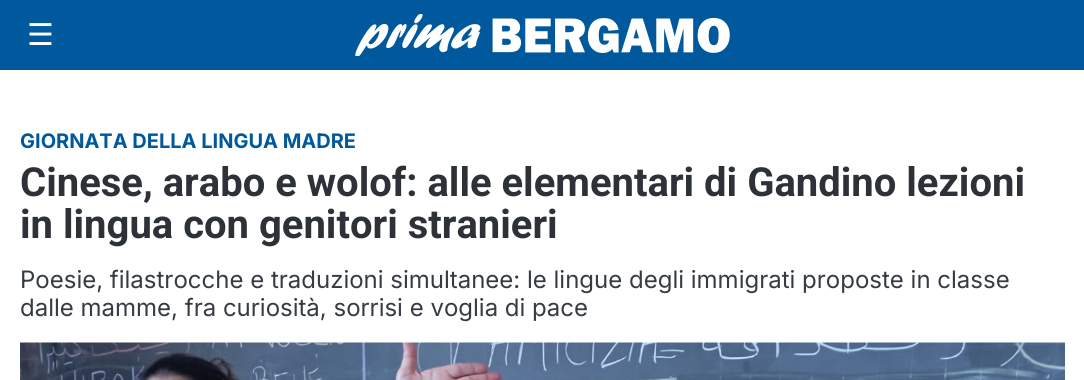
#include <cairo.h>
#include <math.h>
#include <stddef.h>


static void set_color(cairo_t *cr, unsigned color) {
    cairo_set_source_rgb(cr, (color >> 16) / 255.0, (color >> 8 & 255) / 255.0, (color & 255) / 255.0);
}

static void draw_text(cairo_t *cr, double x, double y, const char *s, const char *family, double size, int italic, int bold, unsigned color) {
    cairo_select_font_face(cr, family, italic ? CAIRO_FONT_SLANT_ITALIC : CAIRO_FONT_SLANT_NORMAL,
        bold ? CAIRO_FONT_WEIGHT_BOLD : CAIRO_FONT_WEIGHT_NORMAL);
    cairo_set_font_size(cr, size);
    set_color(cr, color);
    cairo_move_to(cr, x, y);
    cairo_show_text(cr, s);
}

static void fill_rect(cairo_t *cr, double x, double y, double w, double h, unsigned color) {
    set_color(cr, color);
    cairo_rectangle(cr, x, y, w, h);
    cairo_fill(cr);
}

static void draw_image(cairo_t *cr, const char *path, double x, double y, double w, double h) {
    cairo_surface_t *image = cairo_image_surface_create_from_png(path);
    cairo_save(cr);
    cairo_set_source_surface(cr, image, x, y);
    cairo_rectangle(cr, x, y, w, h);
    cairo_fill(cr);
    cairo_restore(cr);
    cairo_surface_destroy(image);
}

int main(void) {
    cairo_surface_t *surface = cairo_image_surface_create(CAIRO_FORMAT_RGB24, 1084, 380);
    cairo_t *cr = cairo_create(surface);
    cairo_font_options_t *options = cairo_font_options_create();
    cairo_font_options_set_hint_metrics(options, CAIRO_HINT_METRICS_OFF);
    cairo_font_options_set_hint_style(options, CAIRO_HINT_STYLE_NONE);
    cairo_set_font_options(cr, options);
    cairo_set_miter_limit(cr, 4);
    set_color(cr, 0xFFFFFF);
    cairo_paint(cr);
    fill_rect(cr, 0, 0, 1084, 70, 0x00599C);
    draw_text(cr, 27, 45, "☰", "DejaVu Sans", 30, 0, 0, 0xFFFFFF);
    draw_image(cr, "assets/img1.png", 355, 14, 375, 42);
    draw_text(cr, 20, 148, "GIORNATA DELLA LINGUA MADRE", "Inter", 20, 0, 1, 0x00599C);
    draw_text(cr, 20, 196, "Cinese, arabo e wolof: alle elementari di Gandino lezioni", "Roboto", 40, 0, 1, 0x2D3138);
    draw_text(cr, 20, 238, "in lingua con genitori stranieri", "Roboto", 40, 0, 1, 0x2D3138);
    draw_text(cr, 20, 288, "Poesie, filastrocche e traduzioni simultanee: le lingue degli immigrati proposte in classe", "Inter", 24, 0, 0, 0x373C44);
    draw_text(cr, 20, 316, "dalle mamme, fra curiosità, sorrisi e voglia di pace", "Inter", 24, 0, 0, 0x373C44);
    draw_image(cr, "assets/img2.png", 20, 342, 1045, 38);
    cairo_surface_write_to_png(surface, "output.png");
    cairo_font_options_destroy(options);
    cairo_destroy(cr);
    cairo_surface_destroy(surface);
    return 0;
}
